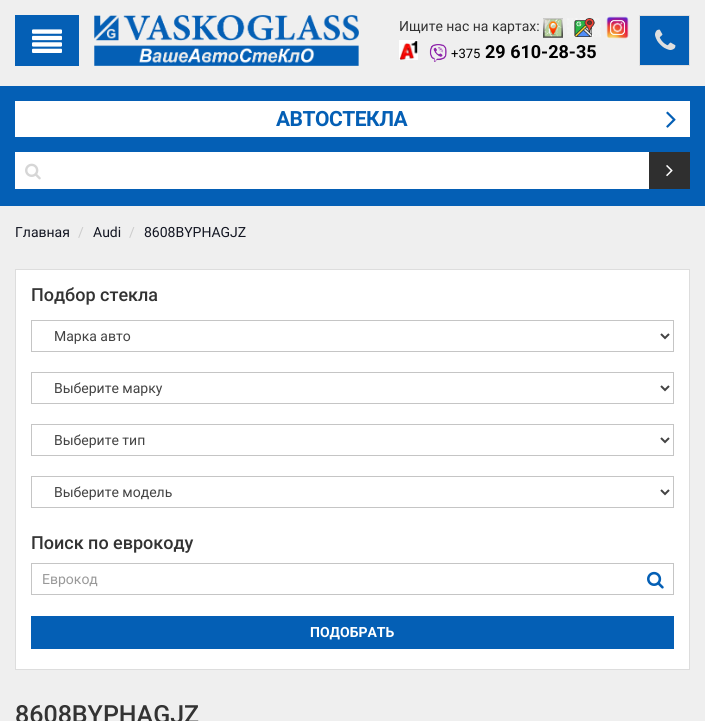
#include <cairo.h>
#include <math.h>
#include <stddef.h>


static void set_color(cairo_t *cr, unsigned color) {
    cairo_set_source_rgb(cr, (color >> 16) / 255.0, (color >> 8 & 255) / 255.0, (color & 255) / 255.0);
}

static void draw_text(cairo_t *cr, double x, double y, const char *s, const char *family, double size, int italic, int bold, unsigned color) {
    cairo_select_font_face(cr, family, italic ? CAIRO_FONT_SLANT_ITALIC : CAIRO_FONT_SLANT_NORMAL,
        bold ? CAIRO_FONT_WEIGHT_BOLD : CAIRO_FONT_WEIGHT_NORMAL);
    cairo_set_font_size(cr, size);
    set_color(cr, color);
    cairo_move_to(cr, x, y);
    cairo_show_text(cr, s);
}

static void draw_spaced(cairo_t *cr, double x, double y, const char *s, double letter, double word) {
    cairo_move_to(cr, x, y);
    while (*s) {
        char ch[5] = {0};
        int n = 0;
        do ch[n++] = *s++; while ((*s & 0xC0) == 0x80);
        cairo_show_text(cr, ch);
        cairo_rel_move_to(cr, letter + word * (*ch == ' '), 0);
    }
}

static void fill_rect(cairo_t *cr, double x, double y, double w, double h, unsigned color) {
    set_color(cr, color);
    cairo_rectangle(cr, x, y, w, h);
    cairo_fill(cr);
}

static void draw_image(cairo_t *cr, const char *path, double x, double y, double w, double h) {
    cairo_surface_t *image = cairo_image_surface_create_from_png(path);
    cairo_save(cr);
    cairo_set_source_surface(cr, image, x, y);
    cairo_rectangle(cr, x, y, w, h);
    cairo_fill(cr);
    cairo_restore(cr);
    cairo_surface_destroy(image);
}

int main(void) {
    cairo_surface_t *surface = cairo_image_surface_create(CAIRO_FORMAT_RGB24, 705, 721);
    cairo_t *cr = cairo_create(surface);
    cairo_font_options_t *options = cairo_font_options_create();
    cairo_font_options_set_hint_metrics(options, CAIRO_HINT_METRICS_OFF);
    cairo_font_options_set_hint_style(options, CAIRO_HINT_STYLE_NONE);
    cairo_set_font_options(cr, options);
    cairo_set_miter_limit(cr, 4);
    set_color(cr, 0xEFEFEF);
    cairo_paint(cr);
    fill_rect(cr, 15, 15, 64, 51, 0x045FB5);
    draw_image(cr, "assets/img1.png", 32, 29, 30, 24);
    draw_image(cr, "assets/img2.png", 94, 15, 265, 51);
    draw_text(cr, 399, 31, "Ищите нас на картах:", "Roboto", 14, 0, 0, 0x333333);
    draw_image(cr, "assets/img3.png", 543, 18, 20, 20);
    draw_image(cr, "assets/img4.png", 567, 18, 34, 19);
    draw_image(cr, "assets/img5.png", 606, 16, 23, 23);
    draw_image(cr, "assets/img6.png", 399, 40, 19, 20);
    draw_image(cr, "assets/img7.png", 429, 44, 18, 18);
    draw_text(cr, 451, 58, "+375", "Roboto", 13, 0, 0, 0x000000);
    draw_text(cr, 485, 58, "29 610-28-35", "Roboto", 18, 0, 1, 0x000000);
    set_color(cr, 0x045FB5);
    cairo_rectangle(cr, 639.5, 15.5, 50, 50);
    cairo_fill_preserve(cr);
    set_color(cr, 0xDFDEDE);
    cairo_set_line_width(cr, 1);
    cairo_stroke(cr);
    draw_image(cr, "assets/img8.png", 655, 29, 21, 21);
    fill_rect(cr, 0, 86, 705, 120, 0x045FB5);
    fill_rect(cr, 15, 101, 675, 36, 0xFFFFFF);
    cairo_set_font_size(cr, 21);
    set_color(cr, 0x045FB5);
    draw_spaced(cr, 276, 126, "АВТОСТЕКЛА", -0.5, 0);
    draw_image(cr, "assets/img9.png", 666, 111, 10, 17);
    fill_rect(cr, 15, 152, 634, 37, 0xFFFFFF);
    draw_image(cr, "assets/img10.png", 25, 163, 16, 17);
    fill_rect(cr, 649, 152, 41, 37, 0x2F2F2F);
    draw_image(cr, "assets/img11.png", 666, 165, 7, 12);
    draw_text(cr, 15, 237, "Главная", "Roboto", 14, 0, 0, 0x131622);
    draw_text(cr, 78, 237, "/", "Roboto", 14, 0, 0, 0xCCCCCC);
    draw_text(cr, 93, 237, "Audi", "Roboto", 14, 0, 0, 0x131622);
    draw_text(cr, 129, 237, "/", "Roboto", 14, 0, 0, 0xCCCCCC);
    draw_text(cr, 144, 237, "8608BYPHAGJZ", "Roboto", 14, 0, 0, 0x131622);
    set_color(cr, 0xFFFFFF);
    cairo_rectangle(cr, 15.5, 269.5, 674, 400);
    cairo_fill_preserve(cr);
    set_color(cr, 0xDDDDDD);
    cairo_stroke(cr);
    draw_text(cr, 31, 301, "Подбор стекла", "Roboto Medium", 18, 0, 0, 0x333333);
    cairo_rectangle(cr, 31.5, 320.5, 642, 31);
    set_color(cr, 0xC5C5C5);
    cairo_stroke(cr);
    cairo_new_path(cr);
    cairo_move_to(cr, 661, 334);
    cairo_line_to(cr, 665, 338);
    cairo_line_to(cr, 669, 334);
    set_color(cr, 0x434343);
    cairo_set_line_width(cr, 2);
    cairo_stroke(cr);
    draw_text(cr, 54, 341, "Марка авто", "Roboto", 14, 0, 0, 0x434343);
    cairo_rectangle(cr, 31.5, 372.5, 642, 31);
    set_color(cr, 0xC5C5C5);
    cairo_set_line_width(cr, 1);
    cairo_stroke(cr);
    cairo_new_path(cr);
    cairo_move_to(cr, 661, 386);
    cairo_line_to(cr, 665, 390);
    cairo_line_to(cr, 669, 386);
    set_color(cr, 0x434343);
    cairo_set_line_width(cr, 2);
    cairo_stroke(cr);
    draw_text(cr, 54, 393, "Выберите марку", "Roboto", 14, 0, 0, 0x434343);
    cairo_rectangle(cr, 31.5, 424.5, 642, 31);
    set_color(cr, 0xC5C5C5);
    cairo_set_line_width(cr, 1);
    cairo_stroke(cr);
    cairo_new_path(cr);
    cairo_move_to(cr, 661, 438);
    cairo_line_to(cr, 665, 442);
    cairo_line_to(cr, 669, 438);
    set_color(cr, 0x434343);
    cairo_set_line_width(cr, 2);
    cairo_stroke(cr);
    draw_text(cr, 54, 445, "Выберите тип", "Roboto", 14, 0, 0, 0x434343);
    cairo_rectangle(cr, 31.5, 476.5, 642, 31);
    set_color(cr, 0xC5C5C5);
    cairo_set_line_width(cr, 1);
    cairo_stroke(cr);
    cairo_new_path(cr);
    cairo_move_to(cr, 661, 490);
    cairo_line_to(cr, 665, 494);
    cairo_line_to(cr, 669, 490);
    set_color(cr, 0x434343);
    cairo_set_line_width(cr, 2);
    cairo_stroke(cr);
    draw_text(cr, 54, 497, "Выберите модель", "Roboto", 14, 0, 0, 0x434343);
    draw_text(cr, 31, 549, "Поиск по еврокоду", "Roboto Medium", 18, 0, 0, 0x333333);
    cairo_rectangle(cr, 31.5, 563.5, 642, 31);
    set_color(cr, 0xC5C5C5);
    cairo_set_line_width(cr, 1);
    cairo_stroke(cr);
    draw_text(cr, 42, 584, "Еврокод", "Roboto", 14, 0, 0, 0x999999);
    draw_image(cr, "assets/img12.png", 647, 571, 17, 18);
    fill_rect(cr, 31, 616, 643, 33, 0x045FB5);
    draw_text(cr, 310, 637, "ПОДОБРАТЬ", "Roboto", 14, 0, 1, 0xFFFFFF);
    draw_text(cr, 15, 723, "8608BYPHAGJZ", "Roboto Medium", 25, 0, 0, 0x333333);
    cairo_surface_write_to_png(surface, "output.png");
    cairo_font_options_destroy(options);
    cairo_destroy(cr);
    cairo_surface_destroy(surface);
    return 0;
}
